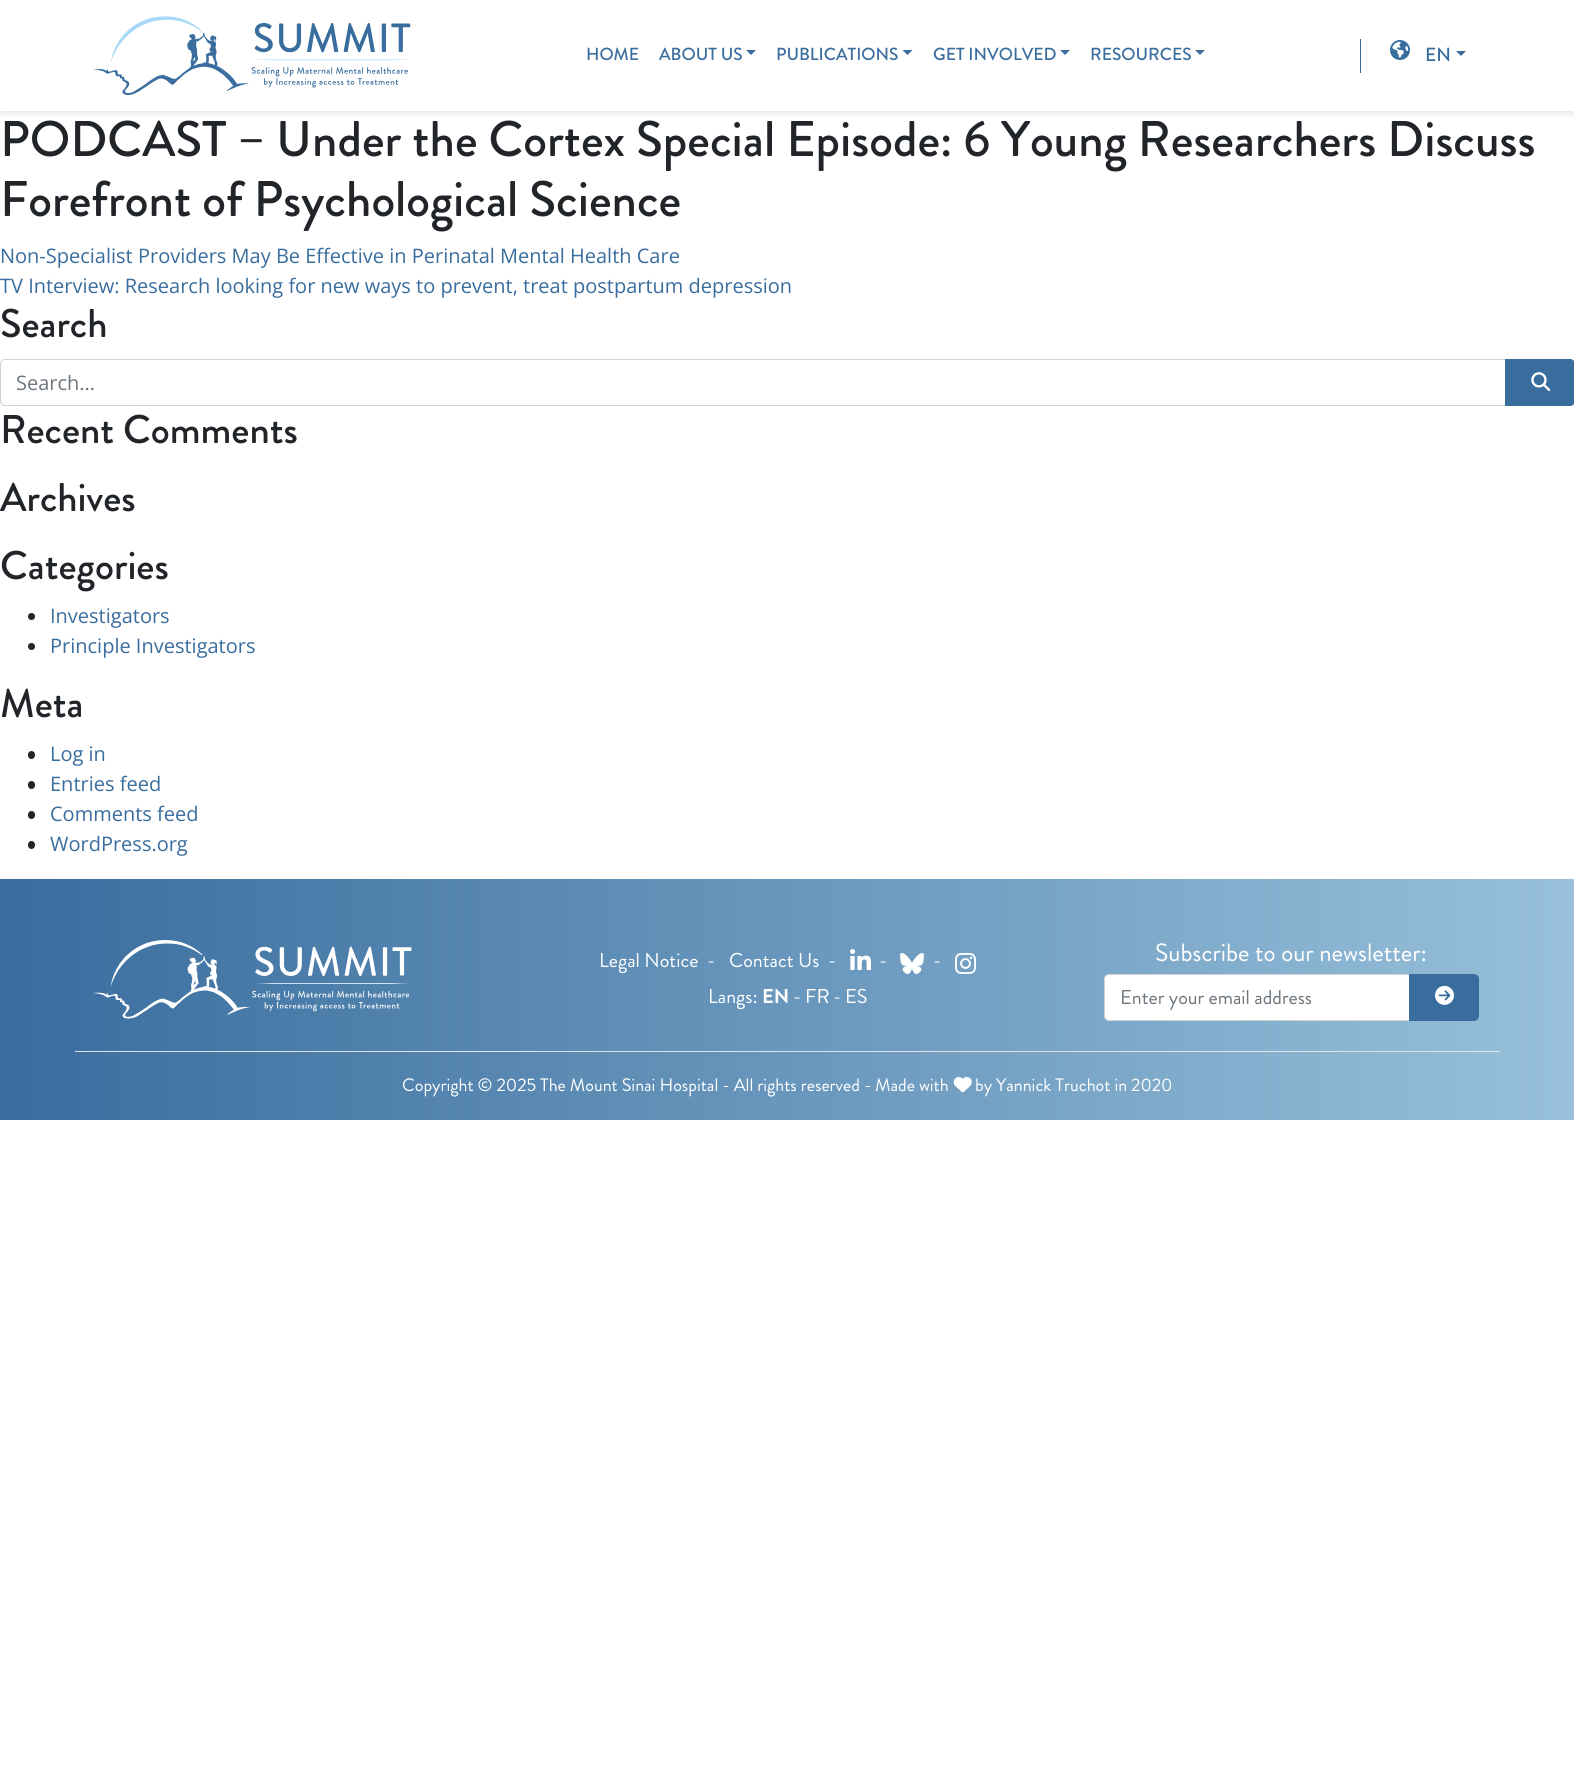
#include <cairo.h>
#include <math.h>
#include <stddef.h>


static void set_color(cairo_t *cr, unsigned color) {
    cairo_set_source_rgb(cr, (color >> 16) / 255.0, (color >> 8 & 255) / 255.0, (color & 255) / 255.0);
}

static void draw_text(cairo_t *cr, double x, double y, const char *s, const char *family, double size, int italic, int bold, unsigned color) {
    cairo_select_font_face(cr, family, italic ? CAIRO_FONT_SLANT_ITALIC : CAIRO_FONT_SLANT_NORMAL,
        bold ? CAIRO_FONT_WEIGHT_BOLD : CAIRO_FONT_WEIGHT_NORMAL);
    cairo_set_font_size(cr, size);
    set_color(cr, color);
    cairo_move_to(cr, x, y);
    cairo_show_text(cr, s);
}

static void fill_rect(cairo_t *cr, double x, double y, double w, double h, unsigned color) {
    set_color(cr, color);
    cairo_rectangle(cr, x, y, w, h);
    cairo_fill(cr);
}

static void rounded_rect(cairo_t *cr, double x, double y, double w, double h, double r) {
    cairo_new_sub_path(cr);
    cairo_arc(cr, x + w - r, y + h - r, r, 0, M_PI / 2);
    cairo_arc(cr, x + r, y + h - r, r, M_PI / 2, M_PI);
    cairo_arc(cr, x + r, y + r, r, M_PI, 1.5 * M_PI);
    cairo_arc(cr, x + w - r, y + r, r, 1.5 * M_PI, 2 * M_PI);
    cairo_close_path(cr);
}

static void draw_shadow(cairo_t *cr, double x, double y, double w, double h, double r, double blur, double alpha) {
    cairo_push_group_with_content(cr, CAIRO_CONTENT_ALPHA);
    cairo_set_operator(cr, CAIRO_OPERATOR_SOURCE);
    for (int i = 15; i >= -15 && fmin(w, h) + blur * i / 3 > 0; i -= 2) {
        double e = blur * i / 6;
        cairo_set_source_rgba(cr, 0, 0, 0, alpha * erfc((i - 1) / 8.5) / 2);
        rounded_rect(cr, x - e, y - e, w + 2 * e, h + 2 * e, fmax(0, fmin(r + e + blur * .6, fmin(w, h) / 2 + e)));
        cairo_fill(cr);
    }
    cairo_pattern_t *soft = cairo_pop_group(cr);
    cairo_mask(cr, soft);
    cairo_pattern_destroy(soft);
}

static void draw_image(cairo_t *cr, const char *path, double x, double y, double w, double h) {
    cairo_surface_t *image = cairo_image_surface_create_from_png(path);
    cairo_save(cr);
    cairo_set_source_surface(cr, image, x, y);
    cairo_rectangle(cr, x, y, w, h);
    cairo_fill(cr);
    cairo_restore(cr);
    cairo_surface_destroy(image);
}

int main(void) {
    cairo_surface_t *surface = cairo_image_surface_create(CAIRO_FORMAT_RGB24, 1574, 1771);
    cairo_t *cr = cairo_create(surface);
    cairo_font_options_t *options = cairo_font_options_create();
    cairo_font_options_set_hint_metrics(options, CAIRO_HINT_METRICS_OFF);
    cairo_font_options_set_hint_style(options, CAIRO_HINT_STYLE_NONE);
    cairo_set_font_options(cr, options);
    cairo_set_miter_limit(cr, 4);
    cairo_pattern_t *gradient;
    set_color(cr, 0xFFFFFF);
    cairo_paint(cr);
    cairo_save(cr);
    cairo_rectangle(cr, 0, 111, 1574, 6);
    cairo_clip(cr);
    set_color(cr, 0x000000);
    draw_shadow(cr, 0, 0, 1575, 111, 0, 5, 0.17);
    cairo_restore(cr);
    draw_image(cr, "assets/img1.png", 94, 16, 317, 79);
    draw_text(cr, 586, 60, "HOME", "Brandon Grotesque Medium", 17.5, 0, 0, 0x396D9E);
    draw_text(cr, 659, 60, "ABOUT US", "Brandon Grotesque Medium", 17.5, 0, 0, 0x396D9E);
    set_color(cr, 0x396D9D);
    cairo_new_path(cr);
    cairo_move_to(cr, 746, 50);
    cairo_line_to(cr, 756, 50);
    cairo_line_to(cr, 751, 55);
    cairo_close_path(cr);
    cairo_fill(cr);
    draw_text(cr, 776, 60, "PUBLICATIONS", "Brandon Grotesque Medium", 17.5, 0, 0, 0x396D9E);
    set_color(cr, 0x396D9D);
    cairo_new_path(cr);
    cairo_move_to(cr, 902.5, 50);
    cairo_line_to(cr, 912.5, 50);
    cairo_line_to(cr, 907.5, 55);
    cairo_close_path(cr);
    cairo_fill(cr);
    draw_text(cr, 933, 60, "GET INVOLVED", "Brandon Grotesque Medium", 17.5, 0, 0, 0x396D9E);
    set_color(cr, 0x396D9D);
    cairo_new_path(cr);
    cairo_move_to(cr, 1060, 50);
    cairo_line_to(cr, 1070, 50);
    cairo_line_to(cr, 1065, 55);
    cairo_close_path(cr);
    cairo_fill(cr);
    draw_text(cr, 1090, 60, "RESOURCES", "Brandon Grotesque Medium", 17.5, 0, 0, 0x396D9E);
    set_color(cr, 0x396D9D);
    cairo_new_path(cr);
    cairo_move_to(cr, 1195, 50);
    cairo_line_to(cr, 1205, 50);
    cairo_line_to(cr, 1200, 55);
    cairo_close_path(cr);
    cairo_fill(cr);
    fill_rect(cr, 1360, 39, 1, 34, 0x396D9D);
    draw_image(cr, "assets/img2.png", 1390, 40, 20, 20);
    draw_text(cr, 1425, 61, "EN", "Brandon Grotesque Medium", 19, 0, 0, 0x396D9E);
    set_color(cr, 0x396D9D);
    cairo_new_path(cr);
    cairo_move_to(cr, 1456, 51);
    cairo_line_to(cr, 1466, 51);
    cairo_line_to(cr, 1461, 56);
    cairo_close_path(cr);
    cairo_fill(cr);
    draw_text(cr, 0, 156, "PODCAST – Under the Cortex Special Episode: 6 Young Researchers Discuss", "Brandon Grotesque Medium", 50, 0, 0, 0x212529);
    draw_text(cr, 0, 216, "Forefront of Psychological Science", "Brandon Grotesque Medium", 50, 0, 0, 0x212529);
    draw_text(cr, 0, 263, "Non-Specialist Providers May Be Effective in Perinatal Mental Health Care", "Open Sans", 20, 0, 0, 0x396D9E);
    draw_text(cr, 0, 293, "TV Interview: Research looking for new ways to prevent, treat postpartum depression", "Open Sans", 20, 0, 0, 0x396D9E);
    draw_text(cr, 0, 337, "Search", "Brandon Grotesque Medium", 40, 0, 0, 0x212529);
    cairo_new_path(cr);
    cairo_move_to(cr, 5, 359.5);
    cairo_line_to(cr, 1505.5, 359.5);
    cairo_line_to(cr, 1505.5, 405.5);
    cairo_line_to(cr, 5, 405.5);
    cairo_curve_to(cr, 2.5, 405.5, 0.5, 403.5, 0.5, 401);
    cairo_line_to(cr, 0.5, 364);
    cairo_curve_to(cr, 0.5, 361.5, 2.5, 359.5, 5, 359.5);
    cairo_close_path(cr);
    set_color(cr, 0xCED4DA);
    cairo_set_line_width(cr, 1);
    cairo_stroke(cr);
    draw_text(cr, 16, 390, "Search...", "Open Sans", 20, 0, 0, 0x6C757D);
    set_color(cr, 0x396D9E);
    cairo_new_path(cr);
    cairo_move_to(cr, 1505.5, 359.5);
    cairo_line_to(cr, 1570, 359.5);
    cairo_curve_to(cr, 1572.5, 359.5, 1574.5, 361.5, 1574.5, 364);
    cairo_line_to(cr, 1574.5, 401);
    cairo_curve_to(cr, 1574.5, 403.5, 1572.5, 405.5, 1570, 405.5);
    cairo_line_to(cr, 1505.5, 405.5);
    cairo_close_path(cr);
    cairo_fill_preserve(cr);
    cairo_stroke(cr);
    draw_image(cr, "assets/img3.png", 1531, 372, 20, 20);
    draw_text(cr, 0, 443, "Recent Comments", "Brandon Grotesque Medium", 40, 0, 0, 0x212529);
    draw_text(cr, 0, 511, "Archives", "Brandon Grotesque Medium", 40, 0, 0, 0x212529);
    draw_text(cr, 0, 579, "Categories", "Brandon Grotesque Medium", 40, 0, 0, 0x212529);
    cairo_new_path(cr);
    cairo_arc(cr, 31.5, 616.5, 3.5, 0, 2 * M_PI);
    cairo_fill(cr);
    draw_text(cr, 50, 623, "Investigators", "Open Sans", 20, 0, 0, 0x396D9E);
    set_color(cr, 0x212529);
    cairo_new_path(cr);
    cairo_arc(cr, 31.5, 646.5, 3.5, 0, 2 * M_PI);
    cairo_fill(cr);
    draw_text(cr, 50, 653, "Principle Investigators", "Open Sans", 20, 0, 0, 0x396D9E);
    draw_text(cr, 0, 717, "Meta", "Brandon Grotesque Medium", 40, 0, 0, 0x212529);
    rounded_rect(cr, 28, 751, 7, 8, 3.5);
    cairo_fill(cr);
    draw_text(cr, 50, 761, "Log in", "Open Sans", 20, 0, 0, 0x396D9E);
    set_color(cr, 0x212529);
    rounded_rect(cr, 28, 781, 7, 8, 3.5);
    cairo_fill(cr);
    draw_text(cr, 50, 791, "Entries feed", "Open Sans", 20, 0, 0, 0x396D9E);
    set_color(cr, 0x212529);
    rounded_rect(cr, 28, 811, 7, 8, 3.5);
    cairo_fill(cr);
    draw_text(cr, 50, 821, "Comments feed", "Open Sans", 20, 0, 0, 0x396D9E);
    set_color(cr, 0x212529);
    rounded_rect(cr, 28, 841, 7, 8, 3.5);
    cairo_fill(cr);
    draw_text(cr, 50, 851, "WordPress.org", "Open Sans", 20, 0, 0, 0x396D9E);
    gradient = cairo_pattern_create_linear(0, 999, 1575, 999);
    cairo_pattern_add_color_stop_rgba(gradient, 0, 0.224, 0.427, 0.62, 1);
    cairo_pattern_add_color_stop_rgba(gradient, 1, 0.596, 0.753, 0.855, 1);
    cairo_set_source(cr, gradient);
    cairo_pattern_destroy(gradient);
    cairo_rectangle(cr, 0, 879, 1574, 241);
    cairo_fill(cr);
    draw_image(cr, "assets/img4.png", 94, 940, 318, 79);
    draw_text(cr, 599, 967, "Legal Notice", "Brandon Grotesque", 20, 0, 0, 0xFFFFFF);
    draw_text(cr, 707, 967, "-", "Brandon Grotesque", 20, 0, 0, 0xFFFFFF);
    draw_text(cr, 729, 967, "Contact Us", "Brandon Grotesque", 20, 0, 0, 0xFFFFFF);
    draw_text(cr, 828, 967, "-", "Brandon Grotesque", 20, 0, 0, 0xFFFFFF);
    draw_image(cr, "assets/img5.png", 850, 949, 21, 21);
    draw_text(cr, 879, 967, "-", "Brandon Grotesque", 20, 0, 0, 0xFFFFFF);
    draw_image(cr, "assets/img6.png", 900, 953, 24, 21);
    draw_text(cr, 933, 967, "-", "Brandon Grotesque", 20, 0, 0, 0xFFFFFF);
    draw_image(cr, "assets/img7.png", 955, 953, 21, 21);
    draw_text(cr, 708, 1003, "Langs:", "Brandon Grotesque", 20, 0, 0, 0xFFFFFF);
    draw_text(cr, 762, 1003, "EN", "Brandon Grotesque", 20, 0, 1, 0xFFFFFF);
    draw_text(cr, 793, 1003, "-", "Brandon Grotesque", 20, 0, 0, 0xFFFFFF);
    draw_text(cr, 805, 1003, "FR", "Brandon Grotesque", 20, 0, 0, 0xFFFFFF);
    draw_text(cr, 833, 1003, "-", "Brandon Grotesque", 20, 0, 0, 0xFFFFFF);
    draw_text(cr, 845, 1003, "ES", "Brandon Grotesque", 20, 0, 0, 0xFFFFFF);
    draw_text(cr, 1155, 961, "Subscribe to our newsletter:", "Brandon Grotesque", 25, 0, 0, 0xFFFFFF);
    cairo_new_path(cr);
    cairo_move_to(cr, 1109, 974.5);
    cairo_line_to(cr, 1409.5, 974.5);
    cairo_line_to(cr, 1409.5, 1020.5);
    cairo_line_to(cr, 1109, 1020.5);
    cairo_curve_to(cr, 1106.5, 1020.5, 1104.5, 1018.5, 1104.5, 1016);
    cairo_line_to(cr, 1104.5, 979);
    cairo_curve_to(cr, 1104.5, 976.5, 1106.5, 974.5, 1109, 974.5);
    cairo_close_path(cr);
    cairo_fill_preserve(cr);
    set_color(cr, 0xCED4DA);
    cairo_stroke(cr);
    draw_text(cr, 1120, 1004, "Enter your email address", "Brandon Grotesque", 20, 0, 0, 0x6C757D);
    set_color(cr, 0x396D9E);
    cairo_new_path(cr);
    cairo_move_to(cr, 1409.5, 974.5);
    cairo_line_to(cr, 1474, 974.5);
    cairo_curve_to(cr, 1476.5, 974.5, 1478.5, 976.5, 1478.5, 979);
    cairo_line_to(cr, 1478.5, 1016);
    cairo_curve_to(cr, 1478.5, 1018.5, 1476.5, 1020.5, 1474, 1020.5);
    cairo_line_to(cr, 1409.5, 1020.5);
    cairo_close_path(cr);
    cairo_fill_preserve(cr);
    cairo_stroke(cr);
    draw_image(cr, "assets/img8.png", 1435, 985, 19, 20);
    fill_rect(cr, 75, 1051, 1425, 1, 0xDEE2E6);
    draw_text(cr, 402, 1091, "Copyright © 2025 The Mount Sinai Hospital - All rights reserved -", "Brandon Grotesque", 18, 0, 0, 0xFFFFFF);
    draw_text(cr, 875, 1091, "Made with", "Brandon Grotesque", 18, 0, 0, 0xFFFFFF);
    draw_image(cr, "assets/img9.png", 953, 1077, 19, 16);
    draw_text(cr, 975, 1091, "by Yannick Truchot in 2020", "Brandon Grotesque", 18, 0, 0, 0xFFFFFF);
    cairo_surface_write_to_png(surface, "output.png");
    cairo_font_options_destroy(options);
    cairo_destroy(cr);
    cairo_surface_destroy(surface);
    return 0;
}
